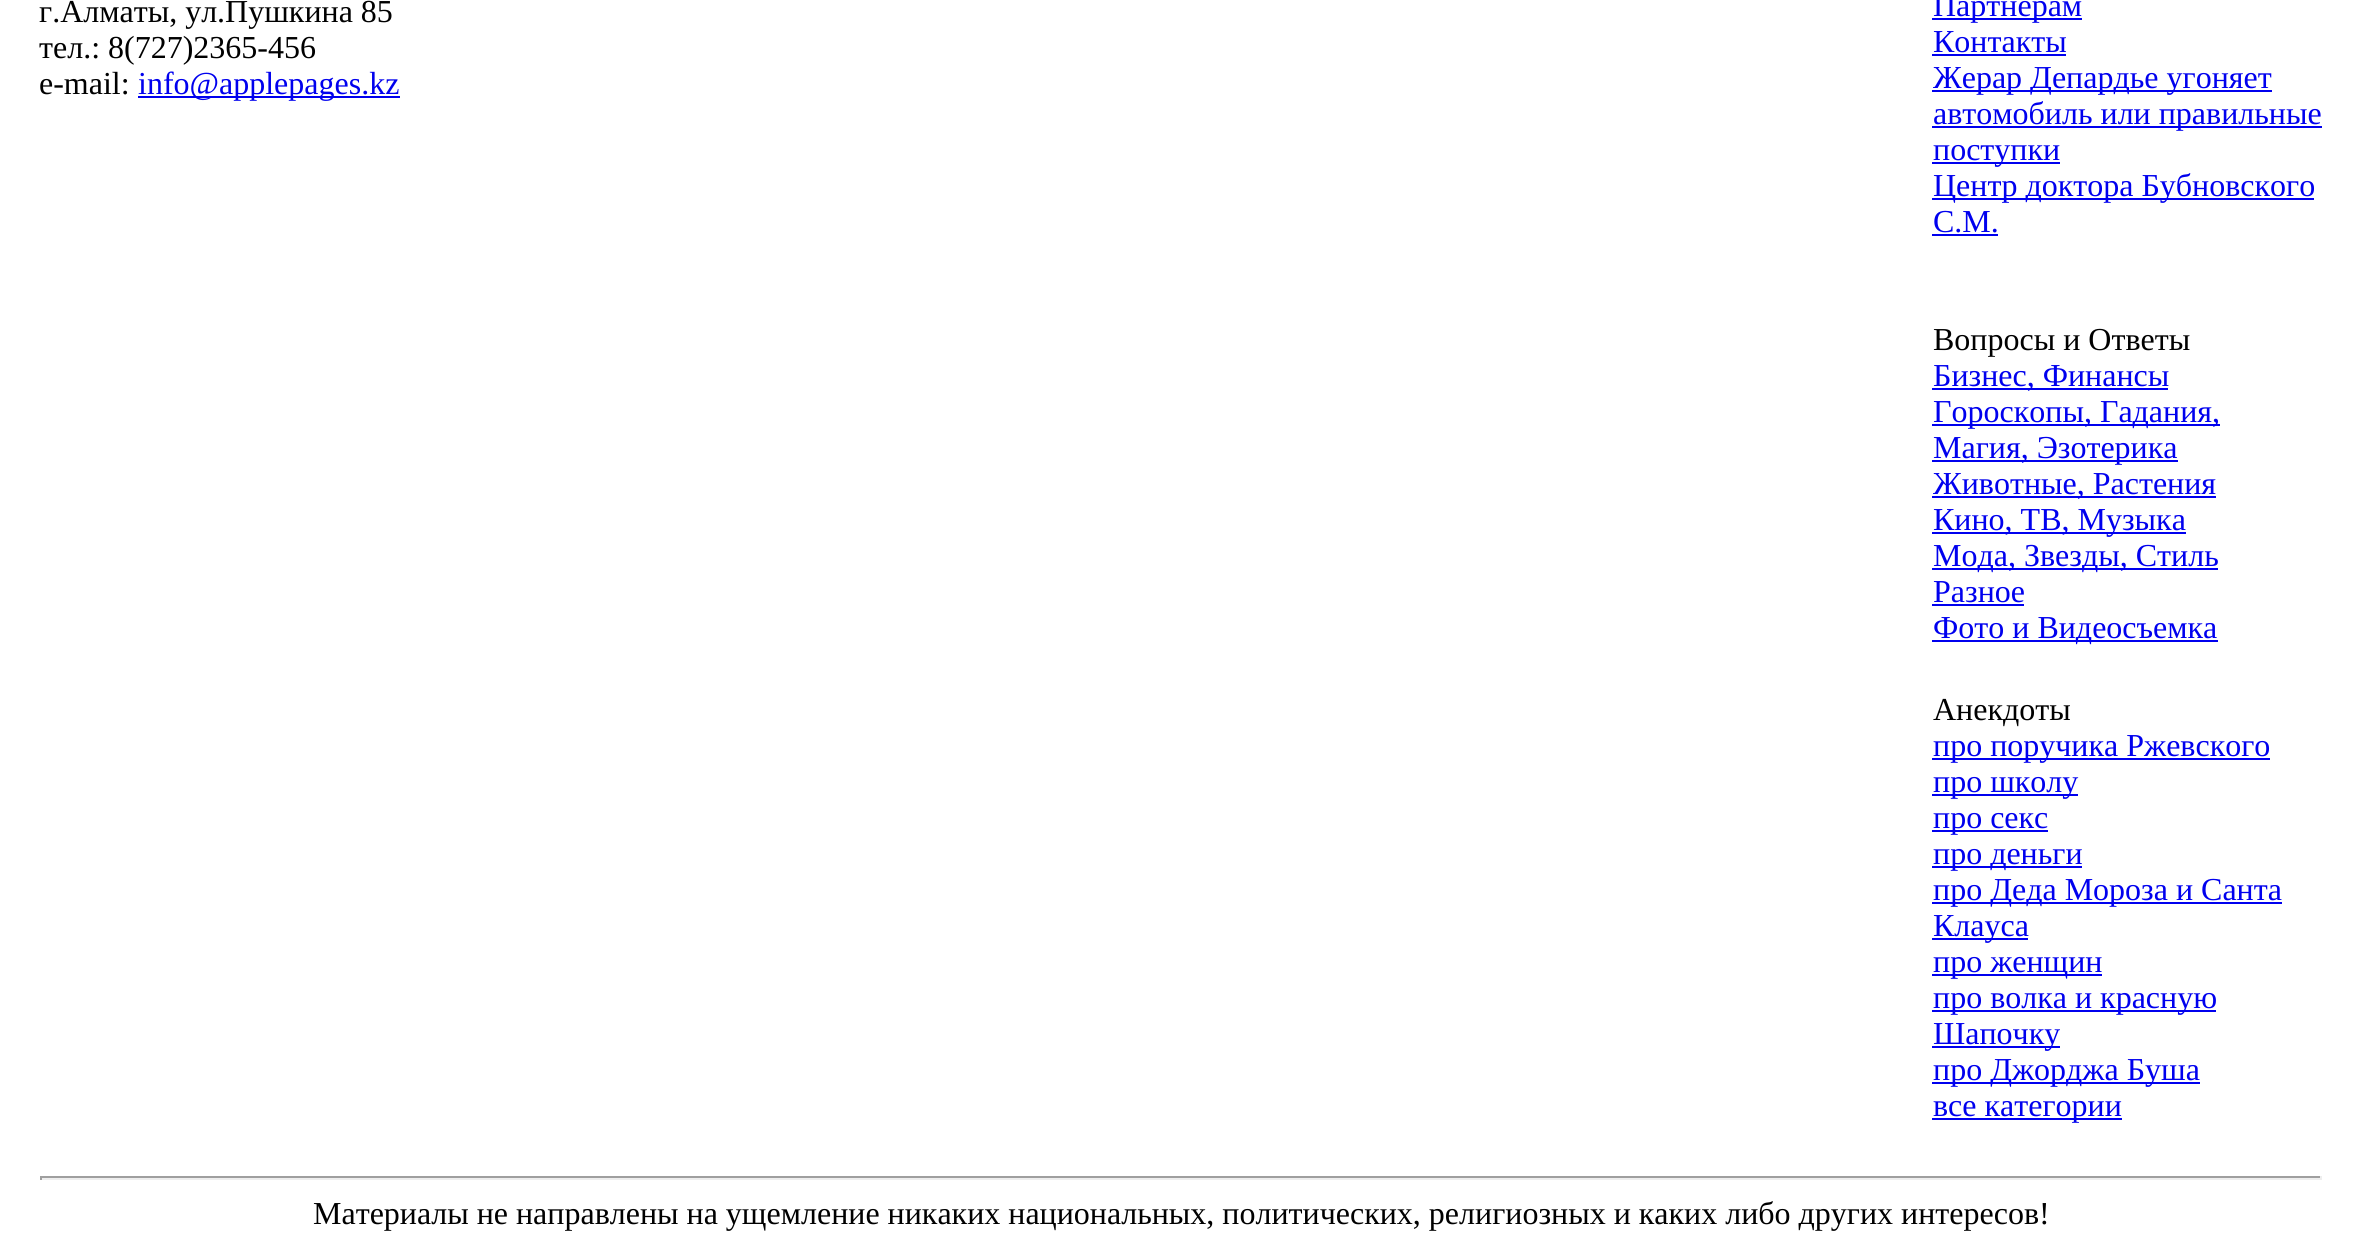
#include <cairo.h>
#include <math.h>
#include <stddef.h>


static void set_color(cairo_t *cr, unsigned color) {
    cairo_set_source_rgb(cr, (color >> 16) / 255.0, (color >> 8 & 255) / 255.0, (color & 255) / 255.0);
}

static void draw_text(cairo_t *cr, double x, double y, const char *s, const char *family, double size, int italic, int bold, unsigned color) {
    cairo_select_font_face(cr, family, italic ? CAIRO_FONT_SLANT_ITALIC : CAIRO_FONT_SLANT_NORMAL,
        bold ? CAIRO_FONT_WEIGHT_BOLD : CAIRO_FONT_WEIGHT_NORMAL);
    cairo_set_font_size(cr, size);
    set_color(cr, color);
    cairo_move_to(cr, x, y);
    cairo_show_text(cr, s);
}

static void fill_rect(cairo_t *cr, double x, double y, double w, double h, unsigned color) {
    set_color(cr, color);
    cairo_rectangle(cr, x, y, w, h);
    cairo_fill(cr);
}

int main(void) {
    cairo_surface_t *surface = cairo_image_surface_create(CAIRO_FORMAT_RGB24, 2362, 1235);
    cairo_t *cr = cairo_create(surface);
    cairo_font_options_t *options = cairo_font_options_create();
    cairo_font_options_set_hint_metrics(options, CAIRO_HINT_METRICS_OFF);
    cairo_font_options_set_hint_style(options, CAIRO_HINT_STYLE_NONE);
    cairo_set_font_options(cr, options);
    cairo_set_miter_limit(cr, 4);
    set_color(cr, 0xFFFFFF);
    cairo_paint(cr);
    draw_text(cr, 39, 22, "г.Алматы, ул.Пушкина 85", "Liberation Serif", 32, 0, 0, 0x000000);
    draw_text(cr, 39, 58, "тел.: 8(727)2365-456", "Liberation Serif", 32, 0, 0, 0x000000);
    draw_text(cr, 39, 94, "e-mail:", "Liberation Serif", 32, 0, 0, 0x000000);
    fill_rect(cr, 138, 96, 262, 2, 0x0000EE);
    draw_text(cr, 138, 94, "info@applepages.kz", "Liberation Serif", 32, 0, 0, 0x0000EE);
    fill_rect(cr, 1932, 18, 150, 2, 0x0000EE);
    draw_text(cr, 1933, 16, "Партнёрам", "Liberation Serif", 32, 0, 0, 0x0000EE);
    draw_text(cr, 1933, 52, "Контакты", "Liberation Serif", 32, 0, 0, 0x0000EE);
    fill_rect(cr, 1932, 54, 134, 2, 0x0000EE);
    fill_rect(cr, 1932, 90, 340, 2, 0x0000EE);
    draw_text(cr, 1933, 88, "Жерар Депардье угоняет", "Liberation Serif", 32, 0, 0, 0x0000EE);
    fill_rect(cr, 1932, 126, 390, 2, 0x0000EE);
    draw_text(cr, 1933, 124, "автомобиль или правильные", "Liberation Serif", 32, 0, 0, 0x0000EE);
    fill_rect(cr, 1932, 162, 128, 2, 0x0000EE);
    draw_text(cr, 1933, 160, "поступки", "Liberation Serif", 32, 0, 0, 0x0000EE);
    fill_rect(cr, 1932, 198, 382, 2, 0x0000EE);
    draw_text(cr, 1933, 196, "Центр доктора Бубновского", "Liberation Serif", 32, 0, 0, 0x0000EE);
    draw_text(cr, 1933, 232, "С.М.", "Liberation Serif", 32, 0, 0, 0x0000EE);
    fill_rect(cr, 1932, 234, 66, 2, 0x0000EE);
    draw_text(cr, 1933, 350, "Вопросы и Ответы", "Liberation Serif", 32, 0, 0, 0x000000);
    fill_rect(cr, 1932, 388, 236, 2, 0x0000EE);
    draw_text(cr, 1933, 386, "Бизнес, Финансы", "Liberation Serif", 32, 0, 0, 0x0000EE);
    fill_rect(cr, 1932, 424, 288, 2, 0x0000EE);
    draw_text(cr, 1933, 422, "Гороскопы, Гадания,", "Liberation Serif", 32, 0, 0, 0x0000EE);
    fill_rect(cr, 1932, 460, 246, 2, 0x0000EE);
    draw_text(cr, 1933, 458, "Магия, Эзотерика", "Liberation Serif", 32, 0, 0, 0x0000EE);
    fill_rect(cr, 1932, 496, 284, 2, 0x0000EE);
    draw_text(cr, 1933, 494, "Животные, Растения", "Liberation Serif", 32, 0, 0, 0x0000EE);
    fill_rect(cr, 1932, 532, 254, 2, 0x0000EE);
    draw_text(cr, 1933, 530, "Кино, ТВ, Музыка", "Liberation Serif", 32, 0, 0, 0x0000EE);
    fill_rect(cr, 1932, 568, 286, 2, 0x0000EE);
    draw_text(cr, 1933, 566, "Мода, Звезды, Стиль", "Liberation Serif", 32, 0, 0, 0x0000EE);
    draw_text(cr, 1933, 602, "Разное", "Liberation Serif", 32, 0, 0, 0x0000EE);
    fill_rect(cr, 1932, 604, 92, 2, 0x0000EE);
    fill_rect(cr, 1932, 640, 286, 2, 0x0000EE);
    draw_text(cr, 1933, 638, "Фото и Видеосъемка", "Liberation Serif", 32, 0, 0, 0x0000EE);
    draw_text(cr, 1933, 720, "Анекдоты", "Liberation Serif", 32, 0, 0, 0x000000);
    fill_rect(cr, 1932, 758, 338, 2, 0x0000EE);
    draw_text(cr, 1933, 756, "про поручика Ржевского", "Liberation Serif", 32, 0, 0, 0x0000EE);
    fill_rect(cr, 1932, 794, 146, 2, 0x0000EE);
    draw_text(cr, 1933, 792, "про школу", "Liberation Serif", 32, 0, 0, 0x0000EE);
    fill_rect(cr, 1932, 830, 116, 2, 0x0000EE);
    draw_text(cr, 1933, 828, "про секс", "Liberation Serif", 32, 0, 0, 0x0000EE);
    fill_rect(cr, 1932, 866, 150, 2, 0x0000EE);
    draw_text(cr, 1933, 864, "про деньги", "Liberation Serif", 32, 0, 0, 0x0000EE);
    fill_rect(cr, 1932, 902, 350, 2, 0x0000EE);
    draw_text(cr, 1933, 900, "про Деда Мороза и Санта", "Liberation Serif", 32, 0, 0, 0x0000EE);
    fill_rect(cr, 1932, 938, 96, 2, 0x0000EE);
    draw_text(cr, 1933, 936, "Клауса", "Liberation Serif", 32, 0, 0, 0x0000EE);
    fill_rect(cr, 1932, 974, 170, 2, 0x0000EE);
    draw_text(cr, 1933, 972, "про женщин", "Liberation Serif", 32, 0, 0, 0x0000EE);
    fill_rect(cr, 1932, 1010, 284, 2, 0x0000EE);
    draw_text(cr, 1933, 1008, "про волка и красную", "Liberation Serif", 32, 0, 0, 0x0000EE);
    fill_rect(cr, 1932, 1046, 128, 2, 0x0000EE);
    draw_text(cr, 1933, 1044, "Шапочку", "Liberation Serif", 32, 0, 0, 0x0000EE);
    fill_rect(cr, 1932, 1082, 268, 2, 0x0000EE);
    draw_text(cr, 1933, 1080, "про Джорджа Буша", "Liberation Serif", 32, 0, 0, 0x0000EE);
    fill_rect(cr, 1932, 1118, 190, 2, 0x0000EE);
    draw_text(cr, 1933, 1116, "все категории", "Liberation Serif", 32, 0, 0, 0x0000EE);
    fill_rect(cr, 40, 1176, 2282, 2, 0x9F9F9F);
    fill_rect(cr, 2320, 1176, 2, 4, 0xEEEEEE);
    fill_rect(cr, 40, 1178, 2282, 2, 0xEEEEEE);
    fill_rect(cr, 40, 1176, 2, 4, 0x9F9F9F);
    draw_text(cr, 313, 1224, "Материалы не направлены на ущемление никаких национальных, политических, религиозных и каких либо других интересов!", "Liberation Serif", 32, 0, 0, 0x000000);
    cairo_surface_write_to_png(surface, "output.png");
    cairo_font_options_destroy(options);
    cairo_destroy(cr);
    cairo_surface_destroy(surface);
    return 0;
}
